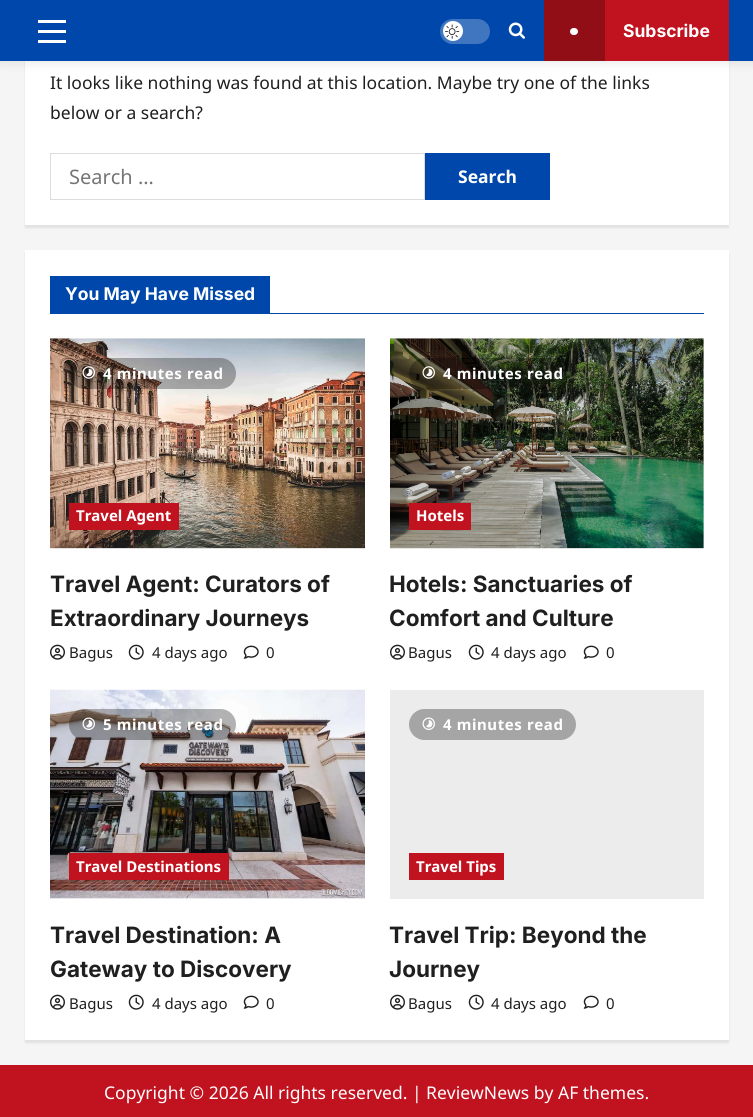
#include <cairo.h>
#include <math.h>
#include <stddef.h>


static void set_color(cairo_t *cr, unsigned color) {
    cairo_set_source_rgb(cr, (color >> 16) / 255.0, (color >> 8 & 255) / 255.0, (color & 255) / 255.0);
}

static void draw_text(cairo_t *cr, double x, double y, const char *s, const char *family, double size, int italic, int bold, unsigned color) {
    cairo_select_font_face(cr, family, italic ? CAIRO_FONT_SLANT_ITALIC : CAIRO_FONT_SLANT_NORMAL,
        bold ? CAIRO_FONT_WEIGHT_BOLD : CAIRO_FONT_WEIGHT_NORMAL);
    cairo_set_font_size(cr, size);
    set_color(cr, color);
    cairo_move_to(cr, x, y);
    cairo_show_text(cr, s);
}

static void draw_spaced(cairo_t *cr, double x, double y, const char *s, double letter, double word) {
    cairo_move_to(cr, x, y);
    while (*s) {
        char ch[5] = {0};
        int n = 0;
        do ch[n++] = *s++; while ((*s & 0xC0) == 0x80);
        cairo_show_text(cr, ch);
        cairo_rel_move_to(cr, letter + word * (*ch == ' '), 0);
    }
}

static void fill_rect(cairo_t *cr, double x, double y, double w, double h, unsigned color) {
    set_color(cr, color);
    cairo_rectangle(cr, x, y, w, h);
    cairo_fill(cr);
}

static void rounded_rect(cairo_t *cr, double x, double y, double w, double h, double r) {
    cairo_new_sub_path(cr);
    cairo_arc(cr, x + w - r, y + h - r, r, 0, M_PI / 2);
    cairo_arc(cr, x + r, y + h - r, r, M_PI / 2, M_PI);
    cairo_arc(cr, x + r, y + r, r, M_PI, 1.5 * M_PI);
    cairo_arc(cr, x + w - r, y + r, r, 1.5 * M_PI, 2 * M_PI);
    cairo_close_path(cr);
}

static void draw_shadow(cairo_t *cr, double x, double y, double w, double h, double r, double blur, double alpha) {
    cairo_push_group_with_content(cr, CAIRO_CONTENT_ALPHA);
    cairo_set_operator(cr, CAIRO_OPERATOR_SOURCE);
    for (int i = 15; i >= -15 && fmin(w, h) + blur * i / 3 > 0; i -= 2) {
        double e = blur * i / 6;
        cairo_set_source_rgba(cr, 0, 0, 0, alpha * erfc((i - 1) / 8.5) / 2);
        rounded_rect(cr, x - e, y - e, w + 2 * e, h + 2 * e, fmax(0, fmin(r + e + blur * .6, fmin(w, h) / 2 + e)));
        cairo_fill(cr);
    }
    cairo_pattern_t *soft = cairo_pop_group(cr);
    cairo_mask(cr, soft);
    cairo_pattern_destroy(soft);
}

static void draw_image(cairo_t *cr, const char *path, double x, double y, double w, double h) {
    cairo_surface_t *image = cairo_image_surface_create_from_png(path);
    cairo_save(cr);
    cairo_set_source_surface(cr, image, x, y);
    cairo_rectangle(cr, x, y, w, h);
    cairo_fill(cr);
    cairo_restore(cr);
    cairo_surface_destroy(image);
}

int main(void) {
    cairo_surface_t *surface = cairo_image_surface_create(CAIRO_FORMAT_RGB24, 753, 1117);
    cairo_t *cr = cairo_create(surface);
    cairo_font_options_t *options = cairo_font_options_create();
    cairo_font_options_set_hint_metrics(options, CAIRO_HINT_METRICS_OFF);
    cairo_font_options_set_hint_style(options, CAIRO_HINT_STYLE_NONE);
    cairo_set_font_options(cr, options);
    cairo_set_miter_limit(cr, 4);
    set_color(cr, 0xF5F5F5);
    cairo_paint(cr);
    set_color(cr, 0x000000);
    draw_shadow(cr, 25, -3, 704, 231, 0, 1, 0.08);
    fill_rect(cr, 25, 61, 704, 164, 0xFFFFFF);
    set_color(cr, 0x000000);
    draw_shadow(cr, 0, 3, 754, 61, 0, 5, 0.08);
    fill_rect(cr, 0, 0, 753, 61, 0x0047AB);
    fill_rect(cr, 38, 30, 28, 3, 0xFFFFFF);
    fill_rect(cr, 38, 20, 28, 3, 0xFFFFFF);
    fill_rect(cr, 38, 40, 28, 3, 0xFFFFFF);
    set_color(cr, 0x4075C0);
    rounded_rect(cr, 440, 19, 50, 25, 12.5);
    cairo_fill(cr);
    set_color(cr, 0xFFFFFF);
    cairo_arc(cr, 453, 31, 10, 0, 2 * M_PI);
    cairo_fill(cr);
    draw_image(cr, "assets/img1.png", 445, 24, 15, 15);
    draw_image(cr, "assets/img2.png", 508, 22, 17, 17);
    fill_rect(cr, 605, 0, 124, 61, 0xC1121F);
    fill_rect(cr, 544, 0, 61, 61, 0x910E17);
    set_color(cr, 0xFFFFFF);
    rounded_rect(cr, 570, 28, 8, 7, 3.5);
    cairo_fill(cr);
    draw_text(cr, 623, 37, "Subscribe", "Inter", 17.5, 0, 1, 0xFFFFFF);
    draw_text(cr, 50, 89, "It looks like nothing was found at this location. Maybe try one of the links", "Noto Sans", 17.5, 0, 0, 0x1F1F1F);
    draw_text(cr, 50, 119, "below or a search?", "Noto Sans", 17.5, 0, 0, 0x1F1F1F);
    cairo_rectangle(cr, 50.5, 153.5, 374, 46);
    set_color(cr, 0xDCDCDC);
    cairo_set_line_width(cr, 1);
    cairo_stroke(cr);
    draw_text(cr, 69, 184, "Search …", "Noto Sans", 20, 0, 0, 0x757575);
    fill_rect(cr, 425, 153, 125, 47, 0x0047AB);
    draw_text(cr, 458, 183, "Search", "Noto Sans", 17.5, 0, 1, 0xFFFFFF);
    set_color(cr, 0x000000);
    draw_shadow(cr, 25, 253, 704, 790, 0, 1, 0.08);
    fill_rect(cr, 25, 250, 704, 790, 0xFFFFFF);
    fill_rect(cr, 50, 313, 654, 1, 0x0047AB);
    fill_rect(cr, 50, 276, 220, 37, 0x0047AB);
    draw_text(cr, 65, 300, "You May Have Missed", "Inter", 17.5, 0, 1, 0xFFFFFF);
    fill_rect(cr, 50, 548, 315, 1, 0xECECEC);
    draw_image(cr, "assets/img3.png", 50, 338, 315, 211);
    cairo_set_source_rgba(cr, 0, 0, 0, 0.3);
    rounded_rect(cr, 69, 358, 167, 31, 15.5);
    cairo_fill(cr);
    draw_image(cr, "assets/img4.png", 82, 366, 13, 13);
    cairo_select_font_face(cr, "Noto Sans", CAIRO_FONT_SLANT_NORMAL, CAIRO_FONT_WEIGHT_BOLD);
    cairo_set_font_size(cr, 15);
    set_color(cr, 0xFFFFFF);
    draw_spaced(cr, 103, 379, "4 minutes read", 0.6, 0);
    fill_rect(cr, 69, 503, 110, 27, 0xC1121F);
    draw_text(cr, 76, 521, "Travel Agent", "Noto Sans", 15, 0, 1, 0xFFFFFF);
    draw_text(cr, 50, 592, "Travel Agent: Curators of", "Inter", 22.5, 0, 1, 0x1F1F1F);
    draw_text(cr, 50, 626, "Extraordinary Journeys", "Inter", 22.5, 0, 1, 0x1F1F1F);
    draw_image(cr, "assets/img5.png", 50, 644, 15, 16);
    draw_text(cr, 69, 658, "Bagus", "Noto Sans", 15, 0, 0, 0x1F1F1F);
    draw_image(cr, "assets/img6.png", 128, 644, 16, 16);
    draw_text(cr, 152, 658, "4 days ago", "Noto Sans", 15, 0, 0, 0x1F1F1F);
    draw_image(cr, "assets/img7.png", 243, 645, 16, 14);
    draw_text(cr, 266, 658, "0", "Noto Sans", 15, 0, 0, 0x1F1F1F);
    fill_rect(cr, 390, 339, 314, 210, 0xECECEC);
    draw_image(cr, "assets/img8.png", 390, 338, 314, 211);
    cairo_set_source_rgba(cr, 0, 0, 0, 0.3);
    rounded_rect(cr, 409, 358, 167, 31, 15.5);
    cairo_fill(cr);
    draw_image(cr, "assets/img9.png", 422, 366, 13, 13);
    cairo_select_font_face(cr, "Noto Sans", CAIRO_FONT_SLANT_NORMAL, CAIRO_FONT_WEIGHT_BOLD);
    set_color(cr, 0xFFFFFF);
    draw_spaced(cr, 443, 379, "4 minutes read", 0.6, 0);
    fill_rect(cr, 409, 503, 62, 27, 0xC1121F);
    draw_text(cr, 416, 521, "Hotels", "Noto Sans", 15, 0, 1, 0xFFFFFF);
    draw_text(cr, 389, 592, "Hotels: Sanctuaries of", "Inter", 22.5, 0, 1, 0x1F1F1F);
    draw_text(cr, 389, 626, "Comfort and Culture", "Inter", 22.5, 0, 1, 0x1F1F1F);
    draw_image(cr, "assets/img5.png", 390, 644, 15, 16);
    draw_text(cr, 408, 658, "Bagus", "Noto Sans", 15, 0, 0, 0x1F1F1F);
    draw_image(cr, "assets/img6.png", 468, 644, 16, 16);
    draw_text(cr, 491, 658, "4 days ago", "Noto Sans", 15, 0, 0, 0x1F1F1F);
    draw_image(cr, "assets/img7.png", 583, 645, 16, 14);
    draw_text(cr, 606, 658, "0", "Noto Sans", 15, 0, 0, 0x1F1F1F);
    fill_rect(cr, 50, 898, 315, 1, 0xECECEC);
    draw_image(cr, "assets/img10.png", 50, 689, 315, 210);
    cairo_set_source_rgba(cr, 0, 0, 0, 0.3);
    rounded_rect(cr, 69, 709, 167, 31, 15.5);
    cairo_fill(cr);
    draw_image(cr, "assets/img11.png", 82, 717, 13, 13);
    cairo_select_font_face(cr, "Noto Sans", CAIRO_FONT_SLANT_NORMAL, CAIRO_FONT_WEIGHT_BOLD);
    set_color(cr, 0xFFFFFF);
    draw_spaced(cr, 103, 730, "5 minutes read", 0.6, 0);
    fill_rect(cr, 69, 853, 160, 27, 0xC1121F);
    draw_text(cr, 76, 872, "Travel Destinations", "Noto Sans", 15, 0, 1, 0xFFFFFF);
    draw_text(cr, 50, 943, "Travel Destination: A", "Inter", 22.5, 0, 1, 0x1F1F1F);
    draw_text(cr, 50, 977, "Gateway to Discovery", "Inter", 22.5, 0, 1, 0x1F1F1F);
    draw_image(cr, "assets/img5.png", 50, 994, 15, 16);
    draw_text(cr, 69, 1009, "Bagus", "Noto Sans", 15, 0, 0, 0x1F1F1F);
    draw_image(cr, "assets/img6.png", 128, 994, 16, 16);
    draw_text(cr, 152, 1009, "4 days ago", "Noto Sans", 15, 0, 0, 0x1F1F1F);
    draw_image(cr, "assets/img7.png", 243, 995, 16, 14);
    draw_text(cr, 266, 1009, "0", "Noto Sans", 15, 0, 0, 0x1F1F1F);
    fill_rect(cr, 390, 690, 314, 209, 0xECECEC);
    set_color(cr, 0xA5A5A5);
    rounded_rect(cr, 409, 709, 167, 31, 15.5);
    cairo_fill(cr);
    draw_image(cr, "assets/img12.png", 422, 717, 13, 13);
    cairo_select_font_face(cr, "Noto Sans", CAIRO_FONT_SLANT_NORMAL, CAIRO_FONT_WEIGHT_BOLD);
    set_color(cr, 0xFFFFFF);
    draw_spaced(cr, 443, 730, "4 minutes read", 0.6, 0);
    fill_rect(cr, 409, 853, 95, 27, 0xC1121F);
    draw_text(cr, 416, 872, "Travel Tips", "Noto Sans", 15, 0, 1, 0xFFFFFF);
    draw_text(cr, 389, 943, "Travel Trip: Beyond the", "Inter", 22.5, 0, 1, 0x1F1F1F);
    draw_text(cr, 389, 977, "Journey", "Inter", 22.5, 0, 1, 0x1F1F1F);
    draw_image(cr, "assets/img5.png", 390, 994, 15, 16);
    draw_text(cr, 408, 1009, "Bagus", "Noto Sans", 15, 0, 0, 0x1F1F1F);
    draw_image(cr, "assets/img6.png", 468, 994, 16, 16);
    draw_text(cr, 491, 1009, "4 days ago", "Noto Sans", 15, 0, 0, 0x1F1F1F);
    draw_image(cr, "assets/img7.png", 583, 995, 16, 14);
    draw_text(cr, 606, 1009, "0", "Noto Sans", 15, 0, 0, 0x1F1F1F);
    fill_rect(cr, 0, 1065, 753, 52, 0xC1121F);
    draw_text(cr, 104, 1099, "Copyright © 2026 All rights reserved. | ReviewNews by AF themes.", "Noto Sans", 17.5, 0, 0, 0xFFFFFF);
    cairo_surface_write_to_png(surface, "output.png");
    cairo_font_options_destroy(options);
    cairo_destroy(cr);
    cairo_surface_destroy(surface);
    return 0;
}
